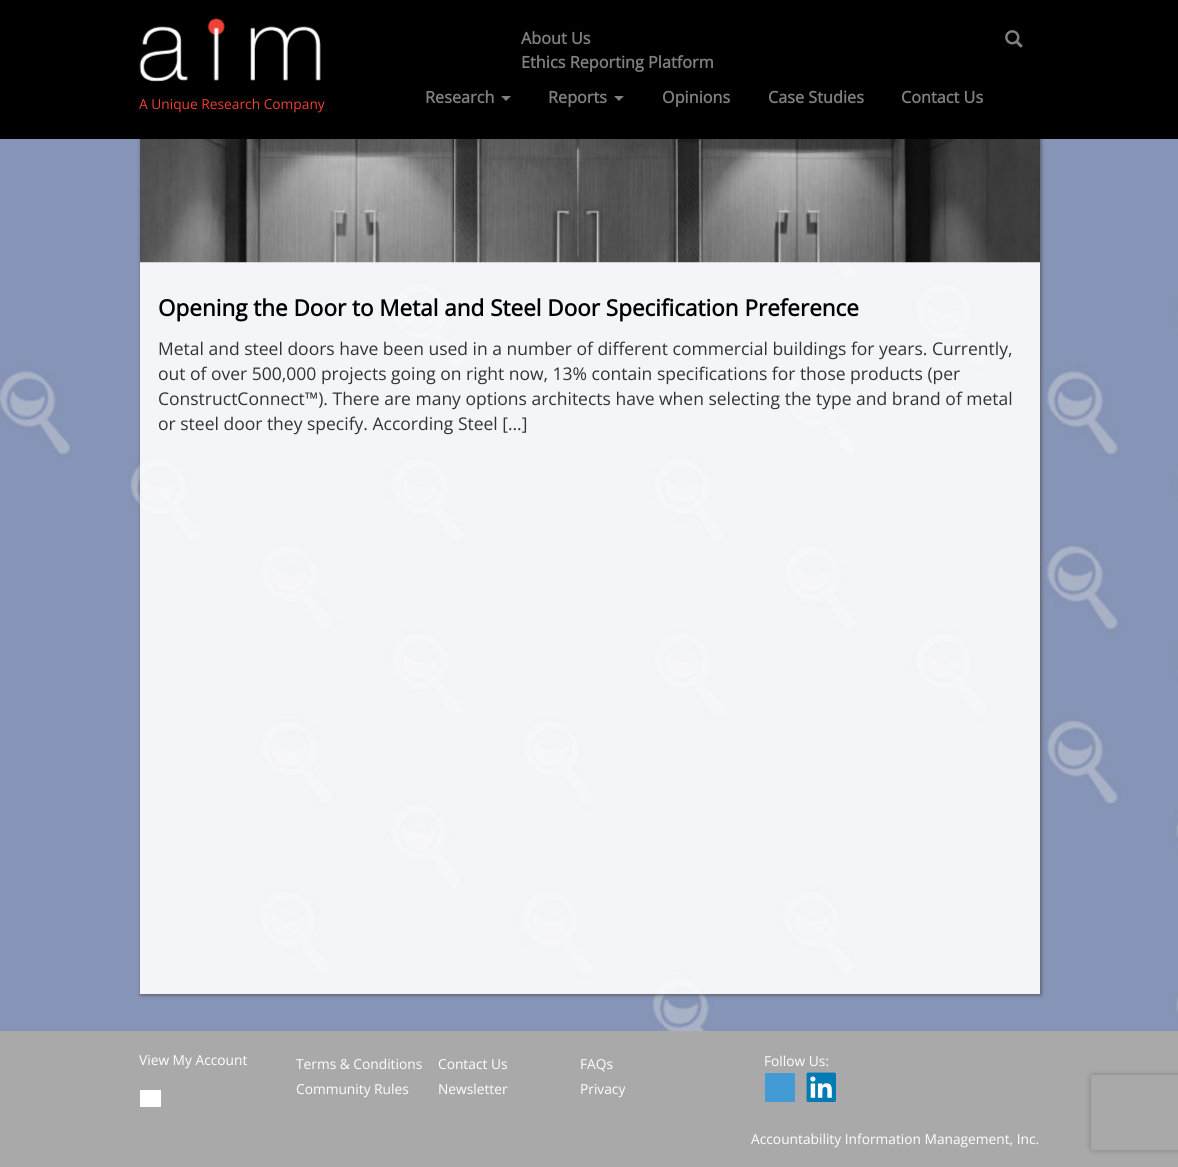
#include <cairo.h>
#include <math.h>
#include <stddef.h>


static void set_color(cairo_t *cr, unsigned color) {
    cairo_set_source_rgb(cr, (color >> 16) / 255.0, (color >> 8 & 255) / 255.0, (color & 255) / 255.0);
}

static void draw_text(cairo_t *cr, double x, double y, const char *s, const char *family, double size, int italic, int bold, unsigned color) {
    cairo_select_font_face(cr, family, italic ? CAIRO_FONT_SLANT_ITALIC : CAIRO_FONT_SLANT_NORMAL,
        bold ? CAIRO_FONT_WEIGHT_BOLD : CAIRO_FONT_WEIGHT_NORMAL);
    cairo_set_font_size(cr, size);
    set_color(cr, color);
    cairo_move_to(cr, x, y);
    cairo_show_text(cr, s);
}

static void fill_rect(cairo_t *cr, double x, double y, double w, double h, unsigned color) {
    set_color(cr, color);
    cairo_rectangle(cr, x, y, w, h);
    cairo_fill(cr);
}

static void rounded_rect(cairo_t *cr, double x, double y, double w, double h, double r) {
    cairo_new_sub_path(cr);
    cairo_arc(cr, x + w - r, y + h - r, r, 0, M_PI / 2);
    cairo_arc(cr, x + r, y + h - r, r, M_PI / 2, M_PI);
    cairo_arc(cr, x + r, y + r, r, M_PI, 1.5 * M_PI);
    cairo_arc(cr, x + w - r, y + r, r, 1.5 * M_PI, 2 * M_PI);
    cairo_close_path(cr);
}

static void draw_shadow(cairo_t *cr, double x, double y, double w, double h, double r, double blur, double alpha) {
    cairo_push_group_with_content(cr, CAIRO_CONTENT_ALPHA);
    cairo_set_operator(cr, CAIRO_OPERATOR_SOURCE);
    for (int i = 15; i >= -15 && fmin(w, h) + blur * i / 3 > 0; i -= 2) {
        double e = blur * i / 6;
        cairo_set_source_rgba(cr, 0, 0, 0, alpha * erfc((i - 1) / 8.5) / 2);
        rounded_rect(cr, x - e, y - e, w + 2 * e, h + 2 * e, fmax(0, fmin(r + e + blur * .6, fmin(w, h) / 2 + e)));
        cairo_fill(cr);
    }
    cairo_pattern_t *soft = cairo_pop_group(cr);
    cairo_mask(cr, soft);
    cairo_pattern_destroy(soft);
}

static void draw_image(cairo_t *cr, const char *path, double x, double y, double w, double h) {
    cairo_surface_t *image = cairo_image_surface_create_from_png(path);
    cairo_save(cr);
    cairo_set_source_surface(cr, image, x, y);
    cairo_rectangle(cr, x, y, w, h);
    cairo_fill(cr);
    cairo_restore(cr);
    cairo_surface_destroy(image);
}

int main(void) {
    cairo_surface_t *surface = cairo_image_surface_create(CAIRO_FORMAT_RGB24, 1178, 1167);
    cairo_t *cr = cairo_create(surface);
    cairo_font_options_t *options = cairo_font_options_create();
    cairo_font_options_set_hint_metrics(options, CAIRO_HINT_METRICS_OFF);
    cairo_font_options_set_hint_style(options, CAIRO_HINT_STYLE_NONE);
    cairo_set_font_options(cr, options);
    cairo_set_miter_limit(cr, 4);
    set_color(cr, 0xFFFFFF);
    cairo_paint(cr);
    draw_image(cr, "assets/img1.png", 0, 139, 1178, 892);
    cairo_save(cr);
    cairo_set_fill_rule(cr, CAIRO_FILL_RULE_EVEN_ODD);
    cairo_new_path(cr);
    cairo_move_to(cr, 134, 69);
    cairo_line_to(cr, 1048, 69);
    cairo_line_to(cr, 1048, 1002);
    cairo_line_to(cr, 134, 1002);
    cairo_close_path(cr);
    cairo_move_to(cr, 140, 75);
    cairo_line_to(cr, 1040, 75);
    cairo_line_to(cr, 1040, 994);
    cairo_line_to(cr, 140, 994);
    cairo_close_path(cr);
    cairo_clip(cr);
    set_color(cr, 0x555555);
    draw_shadow(cr, 141, 76, 900, 919, 0, 2, 1);
    cairo_restore(cr);
    fill_rect(cr, 0, 0, 1178, 139, 0x000000);
    draw_image(cr, "assets/img2.png", 139, 18, 182, 64);
    draw_text(cr, 139, 109, "A Unique Research Company", "Open Sans", 13.75, 0, 0, 0xEF4135);
    draw_text(cr, 521, 44, "About Us", "Open Sans", 16.25, 0, 1, 0x808080);
    draw_text(cr, 521, 68, "Ethics Reporting Platform", "Open Sans", 16.25, 0, 1, 0x808080);
    draw_image(cr, "assets/img3.png", 1005, 30, 18, 18);
    draw_text(cr, 425, 103, "Research", "Open Sans", 16.25, 0, 1, 0x808080);
    cairo_new_path(cr);
    cairo_move_to(cr, 501, 96);
    cairo_line_to(cr, 511, 96);
    cairo_line_to(cr, 506, 101);
    cairo_close_path(cr);
    cairo_fill(cr);
    draw_text(cr, 548, 103, "Reports", "Open Sans", 16.25, 0, 1, 0x808080);
    cairo_new_path(cr);
    cairo_move_to(cr, 614, 96);
    cairo_line_to(cr, 624, 96);
    cairo_line_to(cr, 619, 101);
    cairo_close_path(cr);
    cairo_fill(cr);
    draw_text(cr, 662, 103, "Opinions", "Open Sans", 16.25, 0, 1, 0x808080);
    draw_text(cr, 768, 103, "Case Studies", "Open Sans", 16.25, 0, 1, 0x808080);
    draw_text(cr, 901, 103, "Contact Us", "Open Sans", 16.25, 0, 1, 0x808080);
    cairo_set_source_rgba(cr, 1, 1, 1, 0.9);
    cairo_rectangle(cr, 140, 262, 900, 732);
    cairo_fill(cr);
    draw_image(cr, "assets/img4.png", 140, 139, 900, 124);
    draw_text(cr, 158, 316, "Opening the Door to Metal and Steel Door Specification Preference", "Open Sans", 22.5, 0, 1, 0x000000);
    draw_text(cr, 158, 355, "Metal and steel doors have been used in a number of different commercial buildings for years. Currently,", "Open Sans", 17.5, 0, 0, 0x333333);
    draw_text(cr, 158, 380, "out of over 500,000 projects going on right now, 13% contain specifications for those products (per", "Open Sans", 17.5, 0, 0, 0x333333);
    draw_text(cr, 158, 405, "ConstructConnect™). There are many options architects have when selecting the type and brand of metal", "Open Sans", 17.5, 0, 0, 0x333333);
    draw_text(cr, 158, 430, "or steel door they specify. According Steel […]", "Open Sans", 17.5, 0, 0, 0x333333);
    fill_rect(cr, 0, 1031, 1178, 136, 0xA9A9A9);
    fill_rect(cr, 140, 1090, 21, 17, 0xFFFFFF);
    draw_text(cr, 139, 1065, "View My Account", "Open Sans", 13.75, 0, 0, 0xFFFFFF);
    draw_text(cr, 296, 1069, "Terms & Conditions", "Open Sans", 13.75, 0, 0, 0xFFFFFF);
    draw_text(cr, 438, 1069, "Contact Us", "Open Sans", 13.75, 0, 0, 0xFFFFFF);
    draw_text(cr, 580, 1069, "FAQs", "Open Sans", 13.75, 0, 0, 0xFFFFFF);
    draw_text(cr, 296, 1094, "Community Rules", "Open Sans", 13.75, 0, 0, 0xFFFFFF);
    draw_text(cr, 438, 1094, "Newsletter", "Open Sans", 13.75, 0, 0, 0xFFFFFF);
    draw_text(cr, 580, 1094, "Privacy", "Open Sans", 13.75, 0, 0, 0xFFFFFF);
    draw_text(cr, 764, 1066, "Follow Us:", "Open Sans", 13.75, 0, 0, 0xFFFFFF);
    fill_rect(cr, 765, 1073, 30, 29, 0x439BD6);
    draw_image(cr, "assets/img5.png", 806, 1072, 30, 30);
    draw_text(cr, 751, 1144, "Accountability Information Management, Inc.", "Open Sans", 13.75, 0, 0, 0xFFFFFF);
    cairo_save(cr);
    cairo_set_fill_rule(cr, CAIRO_FILL_RULE_EVEN_ODD);
    cairo_new_path(cr);
    cairo_move_to(cr, 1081, 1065);
    cairo_line_to(cr, 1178, 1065);
    cairo_line_to(cr, 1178, 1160);
    cairo_line_to(cr, 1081, 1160);
    cairo_close_path(cr);
    cairo_move_to(cr, 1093.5, 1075);
    cairo_line_to(cr, 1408.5, 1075);
    cairo_curve_to(cr, 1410, 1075, 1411, 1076, 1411, 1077.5);
    cairo_line_to(cr, 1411, 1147.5);
    cairo_curve_to(cr, 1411, 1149, 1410, 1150, 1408.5, 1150);
    cairo_line_to(cr, 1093.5, 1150);
    cairo_curve_to(cr, 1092, 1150, 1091, 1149, 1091, 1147.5);
    cairo_line_to(cr, 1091, 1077.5);
    cairo_curve_to(cr, 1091, 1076, 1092, 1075, 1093.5, 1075);
    cairo_close_path(cr);
    cairo_clip(cr);
    set_color(cr, 0x808080);
    draw_shadow(cr, 1091, 1075, 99, 75, 2.5, 3, 1);
    cairo_restore(cr);
    cairo_surface_write_to_png(surface, "output.png");
    cairo_font_options_destroy(options);
    cairo_destroy(cr);
    cairo_surface_destroy(surface);
    return 0;
}
